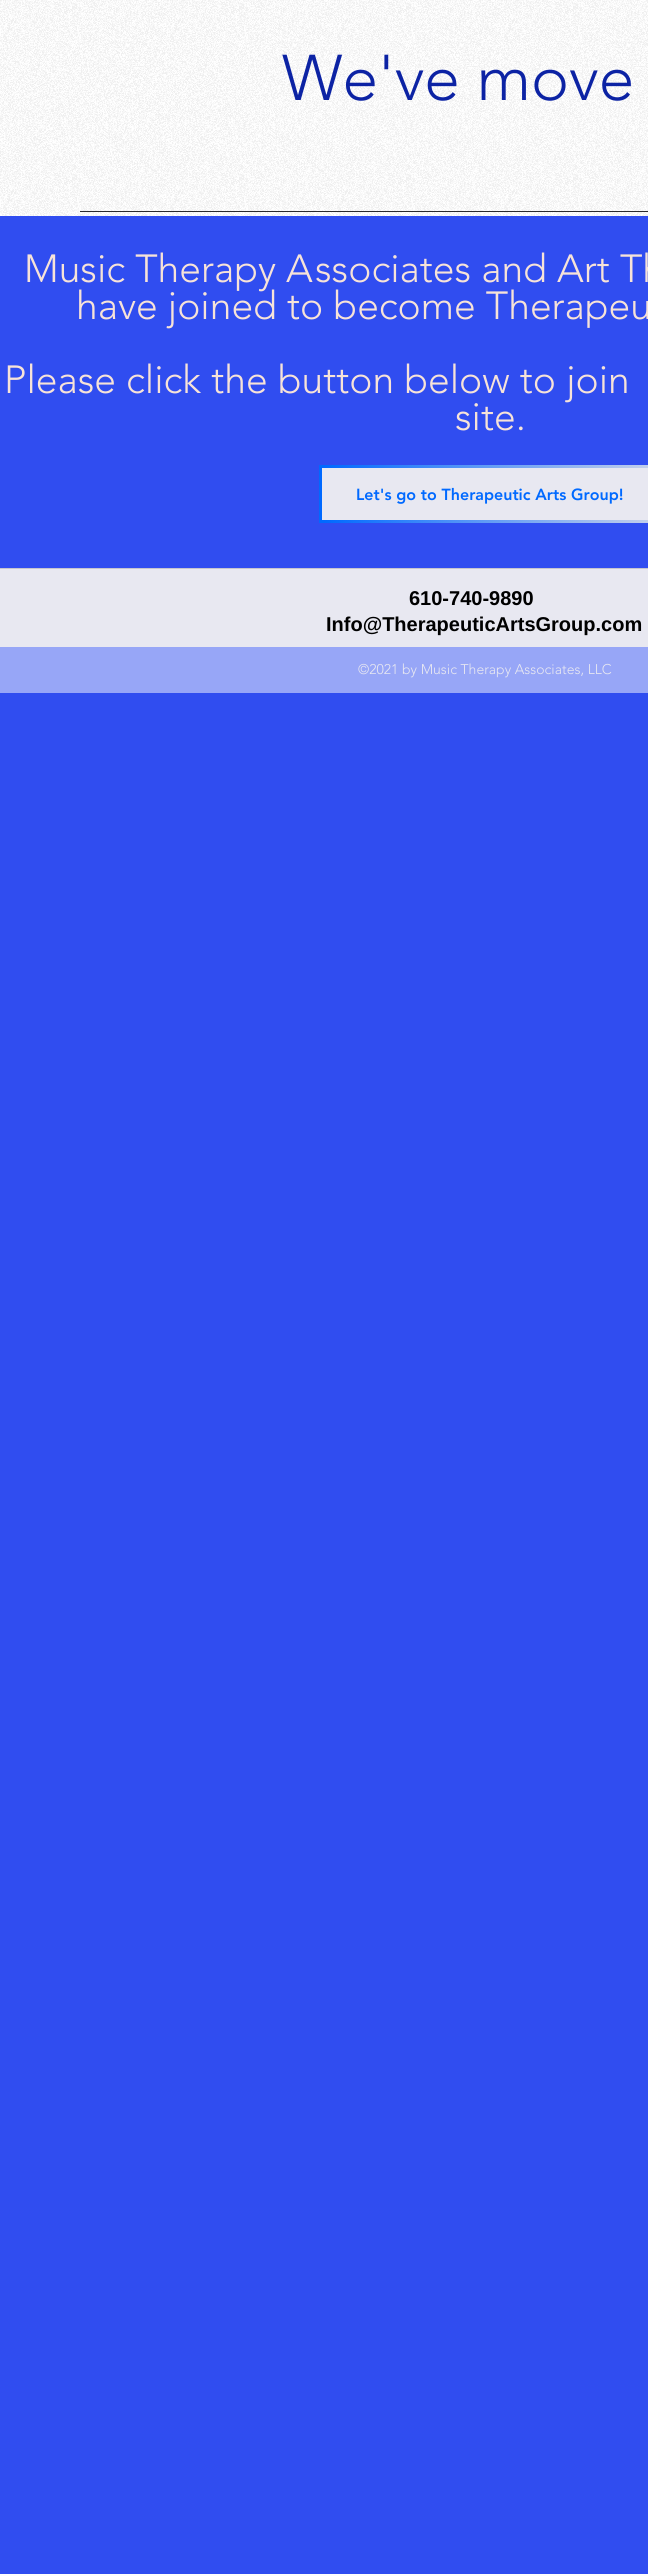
#include <cairo.h>
#include <math.h>
#include <stddef.h>


static void set_color(cairo_t *cr, unsigned color) {
    cairo_set_source_rgb(cr, (color >> 16) / 255.0, (color >> 8 & 255) / 255.0, (color & 255) / 255.0);
}

static void draw_text(cairo_t *cr, double x, double y, const char *s, const char *family, double size, int italic, int bold, unsigned color) {
    cairo_select_font_face(cr, family, italic ? CAIRO_FONT_SLANT_ITALIC : CAIRO_FONT_SLANT_NORMAL,
        bold ? CAIRO_FONT_WEIGHT_BOLD : CAIRO_FONT_WEIGHT_NORMAL);
    cairo_set_font_size(cr, size);
    set_color(cr, color);
    cairo_move_to(cr, x, y);
    cairo_show_text(cr, s);
}

static void draw_spaced(cairo_t *cr, double x, double y, const char *s, double letter, double word) {
    cairo_move_to(cr, x, y);
    while (*s) {
        char ch[5] = {0};
        int n = 0;
        do ch[n++] = *s++; while ((*s & 0xC0) == 0x80);
        cairo_show_text(cr, ch);
        cairo_rel_move_to(cr, letter + word * (*ch == ' '), 0);
    }
}

static void fill_rect(cairo_t *cr, double x, double y, double w, double h, unsigned color) {
    set_color(cr, color);
    cairo_rectangle(cr, x, y, w, h);
    cairo_fill(cr);
}

static void draw_image(cairo_t *cr, const char *path, double x, double y, double w, double h) {
    cairo_surface_t *image = cairo_image_surface_create_from_png(path);
    cairo_save(cr);
    cairo_set_source_surface(cr, image, x, y);
    cairo_rectangle(cr, x, y, w, h);
    cairo_fill(cr);
    cairo_restore(cr);
    cairo_surface_destroy(image);
}

int main(void) {
    cairo_surface_t *surface = cairo_image_surface_create(CAIRO_FORMAT_RGB24, 648, 2574);
    cairo_t *cr = cairo_create(surface);
    cairo_font_options_t *options = cairo_font_options_create();
    cairo_font_options_set_hint_metrics(options, CAIRO_HINT_METRICS_OFF);
    cairo_font_options_set_hint_style(options, CAIRO_HINT_STYLE_NONE);
    cairo_set_font_options(cr, options);
    cairo_set_miter_limit(cr, 4);
    set_color(cr, 0x304DF0);
    cairo_paint(cr);
    fill_rect(cr, 0, 0, 648, 216, 0xFFFFFF);
    draw_image(cr, "assets/img1.png", 0, 0, 648, 216);
    draw_text(cr, 282, 100, "We've move", "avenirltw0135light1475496 Light", 64, 0, 0, 0x0C23A4);
    cairo_set_source_rgba(cr, 0.024, 0.027, 0.039, 0.85);
    cairo_rectangle(cr, 80, 211, 568, 1);
    cairo_fill(cr);
    draw_text(cr, 24, 282, "Music Therapy", "avenirltw0135light1475496 Light", 39, 0, 0, 0xF7E3D8);
    draw_spaced(cr, 286, 282, "A", 2, 0);
    draw_text(cr, 315, 282, "ssociates and Art Th", "avenirltw0135light1475496 Light", 39, 0, 0, 0xF7E3D8);
    draw_text(cr, 76, 319, "have joined to become Therapeu", "avenirltw0135light1475496 Light", 39, 0, 0, 0xF7E3D8);
    draw_text(cr, 4, 393, "Please click the button below to join", "avenirltw0135light1475496 Light", 39, 0, 0, 0xF7E3D8);
    draw_text(cr, 455, 430, "site.", "avenirltw0135light1475496 Light", 39, 0, 0, 0xF7E3D8);
    fill_rect(cr, 322, 468, 326, 52, 0xE8E8F1);
    draw_image(cr, "assets/img2.png", 319, 465, 329, 58);
    draw_text(cr, 356, 500, "Let's go to Therapeutic Arts Group!", "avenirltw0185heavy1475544 Black", 16, 0, 0, 0x0069FF);
    fill_rect(cr, 0, 569, 648, 78, 0xE8E8F1);
    fill_rect(cr, 0, 568, 648, 1, 0xC6C6CE);
    draw_text(cr, 409, 605, "610-740-9890", "Liberation Sans", 20, 0, 1, 0x000000);
    draw_text(cr, 326, 631, "Info@TherapeuticArtsGroup.com", "Liberation Sans", 20, 0, 1, 0x000000);
    fill_rect(cr, 0, 647, 648, 46, 0x97A6F7);
    draw_text(cr, 358, 674, "©2021 by Music Therapy Associates, LLC", "avenirltw0135light1475496 Light", 14, 0, 0, 0xE8E8F1);
    cairo_surface_write_to_png(surface, "output.png");
    cairo_font_options_destroy(options);
    cairo_destroy(cr);
    cairo_surface_destroy(surface);
    return 0;
}
